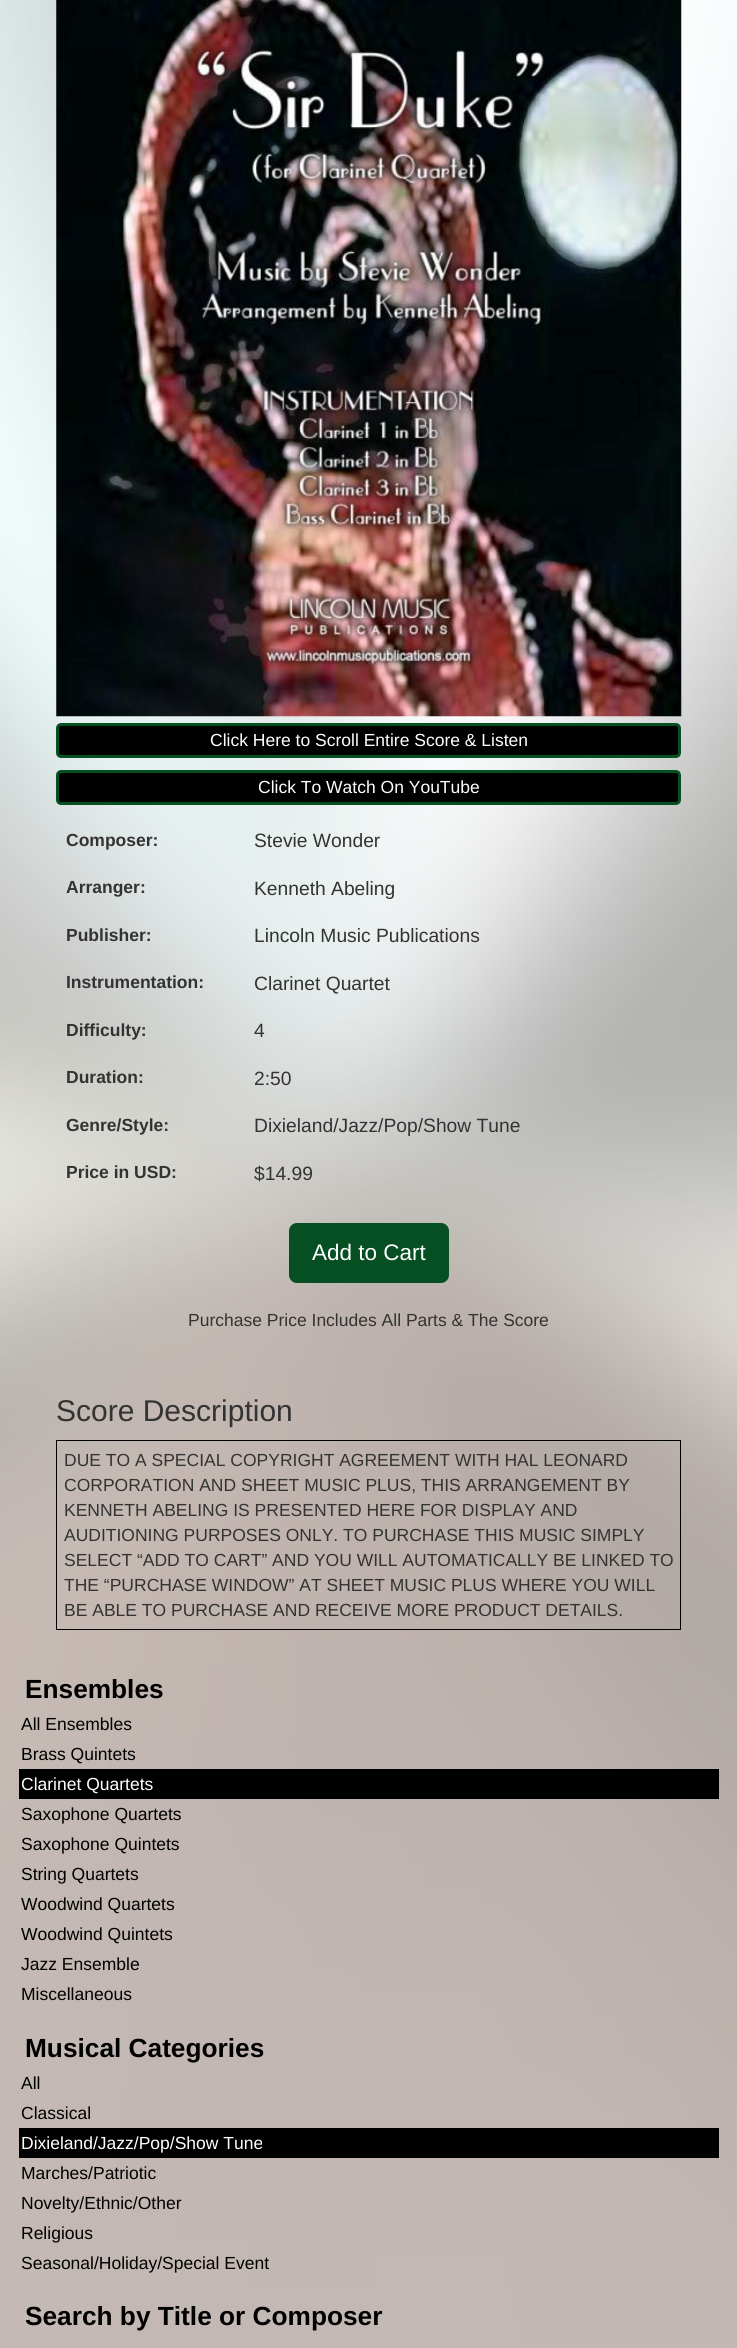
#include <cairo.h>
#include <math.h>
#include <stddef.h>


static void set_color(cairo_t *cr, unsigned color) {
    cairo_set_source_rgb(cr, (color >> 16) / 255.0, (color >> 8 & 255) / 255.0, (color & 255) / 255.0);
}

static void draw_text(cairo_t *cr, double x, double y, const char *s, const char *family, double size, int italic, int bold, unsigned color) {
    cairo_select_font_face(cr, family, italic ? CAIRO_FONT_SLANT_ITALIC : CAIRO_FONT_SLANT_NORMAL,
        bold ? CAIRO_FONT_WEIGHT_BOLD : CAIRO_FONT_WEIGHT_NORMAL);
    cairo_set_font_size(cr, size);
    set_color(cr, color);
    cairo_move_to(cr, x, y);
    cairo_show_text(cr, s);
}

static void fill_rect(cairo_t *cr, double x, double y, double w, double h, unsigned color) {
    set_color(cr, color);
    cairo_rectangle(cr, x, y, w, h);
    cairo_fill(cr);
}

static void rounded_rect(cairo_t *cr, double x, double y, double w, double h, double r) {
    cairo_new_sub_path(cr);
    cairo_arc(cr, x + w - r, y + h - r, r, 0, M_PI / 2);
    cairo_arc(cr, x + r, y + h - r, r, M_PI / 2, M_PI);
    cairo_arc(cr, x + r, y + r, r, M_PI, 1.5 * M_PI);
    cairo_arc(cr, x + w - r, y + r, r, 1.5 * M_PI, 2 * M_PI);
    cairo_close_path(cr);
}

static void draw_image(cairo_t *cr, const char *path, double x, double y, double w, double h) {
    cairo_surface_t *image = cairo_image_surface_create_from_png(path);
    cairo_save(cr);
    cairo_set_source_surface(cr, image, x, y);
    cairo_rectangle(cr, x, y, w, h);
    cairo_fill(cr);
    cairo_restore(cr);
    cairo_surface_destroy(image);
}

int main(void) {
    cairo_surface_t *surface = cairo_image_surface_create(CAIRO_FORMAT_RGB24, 737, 2348);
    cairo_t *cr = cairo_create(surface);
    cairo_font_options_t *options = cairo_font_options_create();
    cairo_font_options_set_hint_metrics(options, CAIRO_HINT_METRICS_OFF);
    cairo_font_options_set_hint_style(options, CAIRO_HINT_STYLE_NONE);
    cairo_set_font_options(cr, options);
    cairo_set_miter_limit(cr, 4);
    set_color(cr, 0xFFFFFF);
    cairo_paint(cr);
    draw_image(cr, "assets/img1.png", 0, 0, 737, 2348);
    draw_image(cr, "assets/img2.png", 56, 0, 626, 717);
    set_color(cr, 0x000000);
    rounded_rect(cr, 57.5, 724.5, 622, 32, 3.5);
    cairo_fill_preserve(cr);
    set_color(cr, 0x064F23);
    cairo_set_line_width(cr, 3);
    cairo_stroke(cr);
    draw_text(cr, 210, 746, "Click Here to Scroll Entire Score & Listen", "Liberation Sans", 17.5, 0, 0, 0xFFFFFF);
    set_color(cr, 0x000000);
    rounded_rect(cr, 57.5, 771.5, 622, 32, 3.5);
    cairo_fill_preserve(cr);
    set_color(cr, 0x064F23);
    cairo_stroke(cr);
    draw_text(cr, 258, 793, "Click To Watch On YouTube", "Liberation Sans", 17.5, 0, 0, 0xFFFFFF);
    draw_text(cr, 66, 846, "Composer:", "Liberation Sans", 17.5, 0, 1, 0x333333);
    draw_text(cr, 254, 847, "Stevie Wonder", "Liberation Sans", 19.25, 0, 0, 0x333333);
    draw_text(cr, 66, 893, "Arranger:", "Liberation Sans", 17.5, 0, 1, 0x333333);
    draw_text(cr, 254, 895, "Kenneth Abeling", "Liberation Sans", 19.25, 0, 0, 0x333333);
    draw_text(cr, 66, 941, "Publisher:", "Liberation Sans", 17.5, 0, 1, 0x333333);
    draw_text(cr, 254, 942, "Lincoln Music Publications", "Liberation Sans", 19.25, 0, 0, 0x333333);
    draw_text(cr, 66, 988, "Instrumentation:", "Liberation Sans", 17.5, 0, 1, 0x333333);
    draw_text(cr, 254, 990, "Clarinet Quartet", "Liberation Sans", 19.25, 0, 0, 0x333333);
    draw_text(cr, 66, 1036, "Difficulty:", "Liberation Sans", 17.5, 0, 1, 0x333333);
    draw_text(cr, 254, 1037, "4", "Liberation Sans", 19.25, 0, 0, 0x333333);
    draw_text(cr, 66, 1083, "Duration:", "Liberation Sans", 17.5, 0, 1, 0x333333);
    draw_text(cr, 254, 1085, "2:50", "Liberation Sans", 19.25, 0, 0, 0x333333);
    draw_text(cr, 66, 1131, "Genre/Style:", "Liberation Sans", 17.5, 0, 1, 0x333333);
    draw_text(cr, 254, 1132, "Dixieland/Jazz/Pop/Show Tune", "Liberation Sans", 19.25, 0, 0, 0x333333);
    draw_text(cr, 66, 1178, "Price in USD:", "Liberation Sans", 17.5, 0, 1, 0x333333);
    draw_text(cr, 254, 1180, "$14.99", "Liberation Sans", 19.25, 0, 0, 0x333333);
    set_color(cr, 0x064F23);
    rounded_rect(cr, 290.5, 1224.5, 157, 57, 6.5);
    cairo_fill_preserve(cr);
    cairo_stroke(cr);
    draw_text(cr, 312, 1260, "Add to Cart", "Liberation Sans", 22.5, 0, 0, 0xFFFFFF);
    draw_text(cr, 188, 1326, "Purchase Price Includes All Parts & The Score", "Liberation Sans", 17.5, 0, 0, 0x333333);
    draw_text(cr, 56, 1421, "Score Description", "Liberation Sans", 30, 0, 0, 0x333333);
    cairo_rectangle(cr, 56.5, 1440.5, 624, 189);
    set_color(cr, 0x000000);
    cairo_set_line_width(cr, 1);
    cairo_stroke(cr);
    draw_text(cr, 64, 1466, "DUE TO A SPECIAL COPYRIGHT AGREEMENT WITH HAL LEONARD", "Liberation Sans", 17.5, 0, 0, 0x333333);
    draw_text(cr, 64, 1491, "CORPORATION AND SHEET MUSIC PLUS, THIS ARRANGEMENT BY", "Liberation Sans", 17.5, 0, 0, 0x333333);
    draw_text(cr, 64, 1516, "KENNETH ABELING IS PRESENTED HERE FOR DISPLAY AND", "Liberation Sans", 17.5, 0, 0, 0x333333);
    draw_text(cr, 64, 1541, "AUDITIONING PURPOSES ONLY. TO PURCHASE THIS MUSIC SIMPLY", "Liberation Sans", 17.5, 0, 0, 0x333333);
    draw_text(cr, 64, 1566, "SELECT “ADD TO CART” AND YOU WILL AUTOMATICALLY BE LINKED TO", "Liberation Sans", 17.5, 0, 0, 0x333333);
    draw_text(cr, 64, 1591, "THE “PURCHASE WINDOW” AT SHEET MUSIC PLUS WHERE YOU WILL", "Liberation Sans", 17.5, 0, 0, 0x333333);
    draw_text(cr, 64, 1616, "BE ABLE TO PURCHASE AND RECEIVE MORE PRODUCT DETAILS.", "Liberation Sans", 17.5, 0, 0, 0x333333);
    draw_text(cr, 25, 1698, "Ensembles", "Liberation Sans", 26.25, 0, 1, 0x000000);
    draw_text(cr, 21, 1730, "All Ensembles", "Liberation Sans", 17.5, 0, 0, 0x000000);
    draw_text(cr, 21, 1760, "Brass Quintets", "Liberation Sans", 17.5, 0, 0, 0x000000);
    fill_rect(cr, 19, 1769, 700, 30, 0x000000);
    draw_text(cr, 21, 1790, "Clarinet Quartets", "Liberation Sans", 17.5, 0, 0, 0xFFFFFF);
    draw_text(cr, 21, 1820, "Saxophone Quartets", "Liberation Sans", 17.5, 0, 0, 0x000000);
    draw_text(cr, 21, 1850, "Saxophone Quintets", "Liberation Sans", 17.5, 0, 0, 0x000000);
    draw_text(cr, 21, 1880, "String Quartets", "Liberation Sans", 17.5, 0, 0, 0x000000);
    draw_text(cr, 21, 1910, "Woodwind Quartets", "Liberation Sans", 17.5, 0, 0, 0x000000);
    draw_text(cr, 21, 1940, "Woodwind Quintets", "Liberation Sans", 17.5, 0, 0, 0x000000);
    draw_text(cr, 21, 1970, "Jazz Ensemble", "Liberation Sans", 17.5, 0, 0, 0x000000);
    draw_text(cr, 21, 2000, "Miscellaneous", "Liberation Sans", 17.5, 0, 0, 0x000000);
    draw_text(cr, 25, 2057, "Musical Categories", "Liberation Sans", 26.25, 0, 1, 0x000000);
    draw_text(cr, 21, 2089, "All", "Liberation Sans", 17.5, 0, 0, 0x000000);
    draw_text(cr, 21, 2119, "Classical", "Liberation Sans", 17.5, 0, 0, 0x000000);
    fill_rect(cr, 19, 2128, 700, 30, 0x000000);
    draw_text(cr, 21, 2149, "Dixieland/Jazz/Pop/Show Tune", "Liberation Sans", 17.5, 0, 0, 0xFFFFFF);
    draw_text(cr, 21, 2179, "Marches/Patriotic", "Liberation Sans", 17.5, 0, 0, 0x000000);
    draw_text(cr, 21, 2209, "Novelty/Ethnic/Other", "Liberation Sans", 17.5, 0, 0, 0x000000);
    draw_text(cr, 21, 2239, "Religious", "Liberation Sans", 17.5, 0, 0, 0x000000);
    draw_text(cr, 21, 2269, "Seasonal/Holiday/Special Event", "Liberation Sans", 17.5, 0, 0, 0x000000);
    draw_text(cr, 25, 2325, "Search by Title or Composer", "Liberation Sans", 26.25, 0, 1, 0x000000);
    cairo_surface_write_to_png(surface, "output.png");
    cairo_font_options_destroy(options);
    cairo_destroy(cr);
    cairo_surface_destroy(surface);
    return 0;
}
